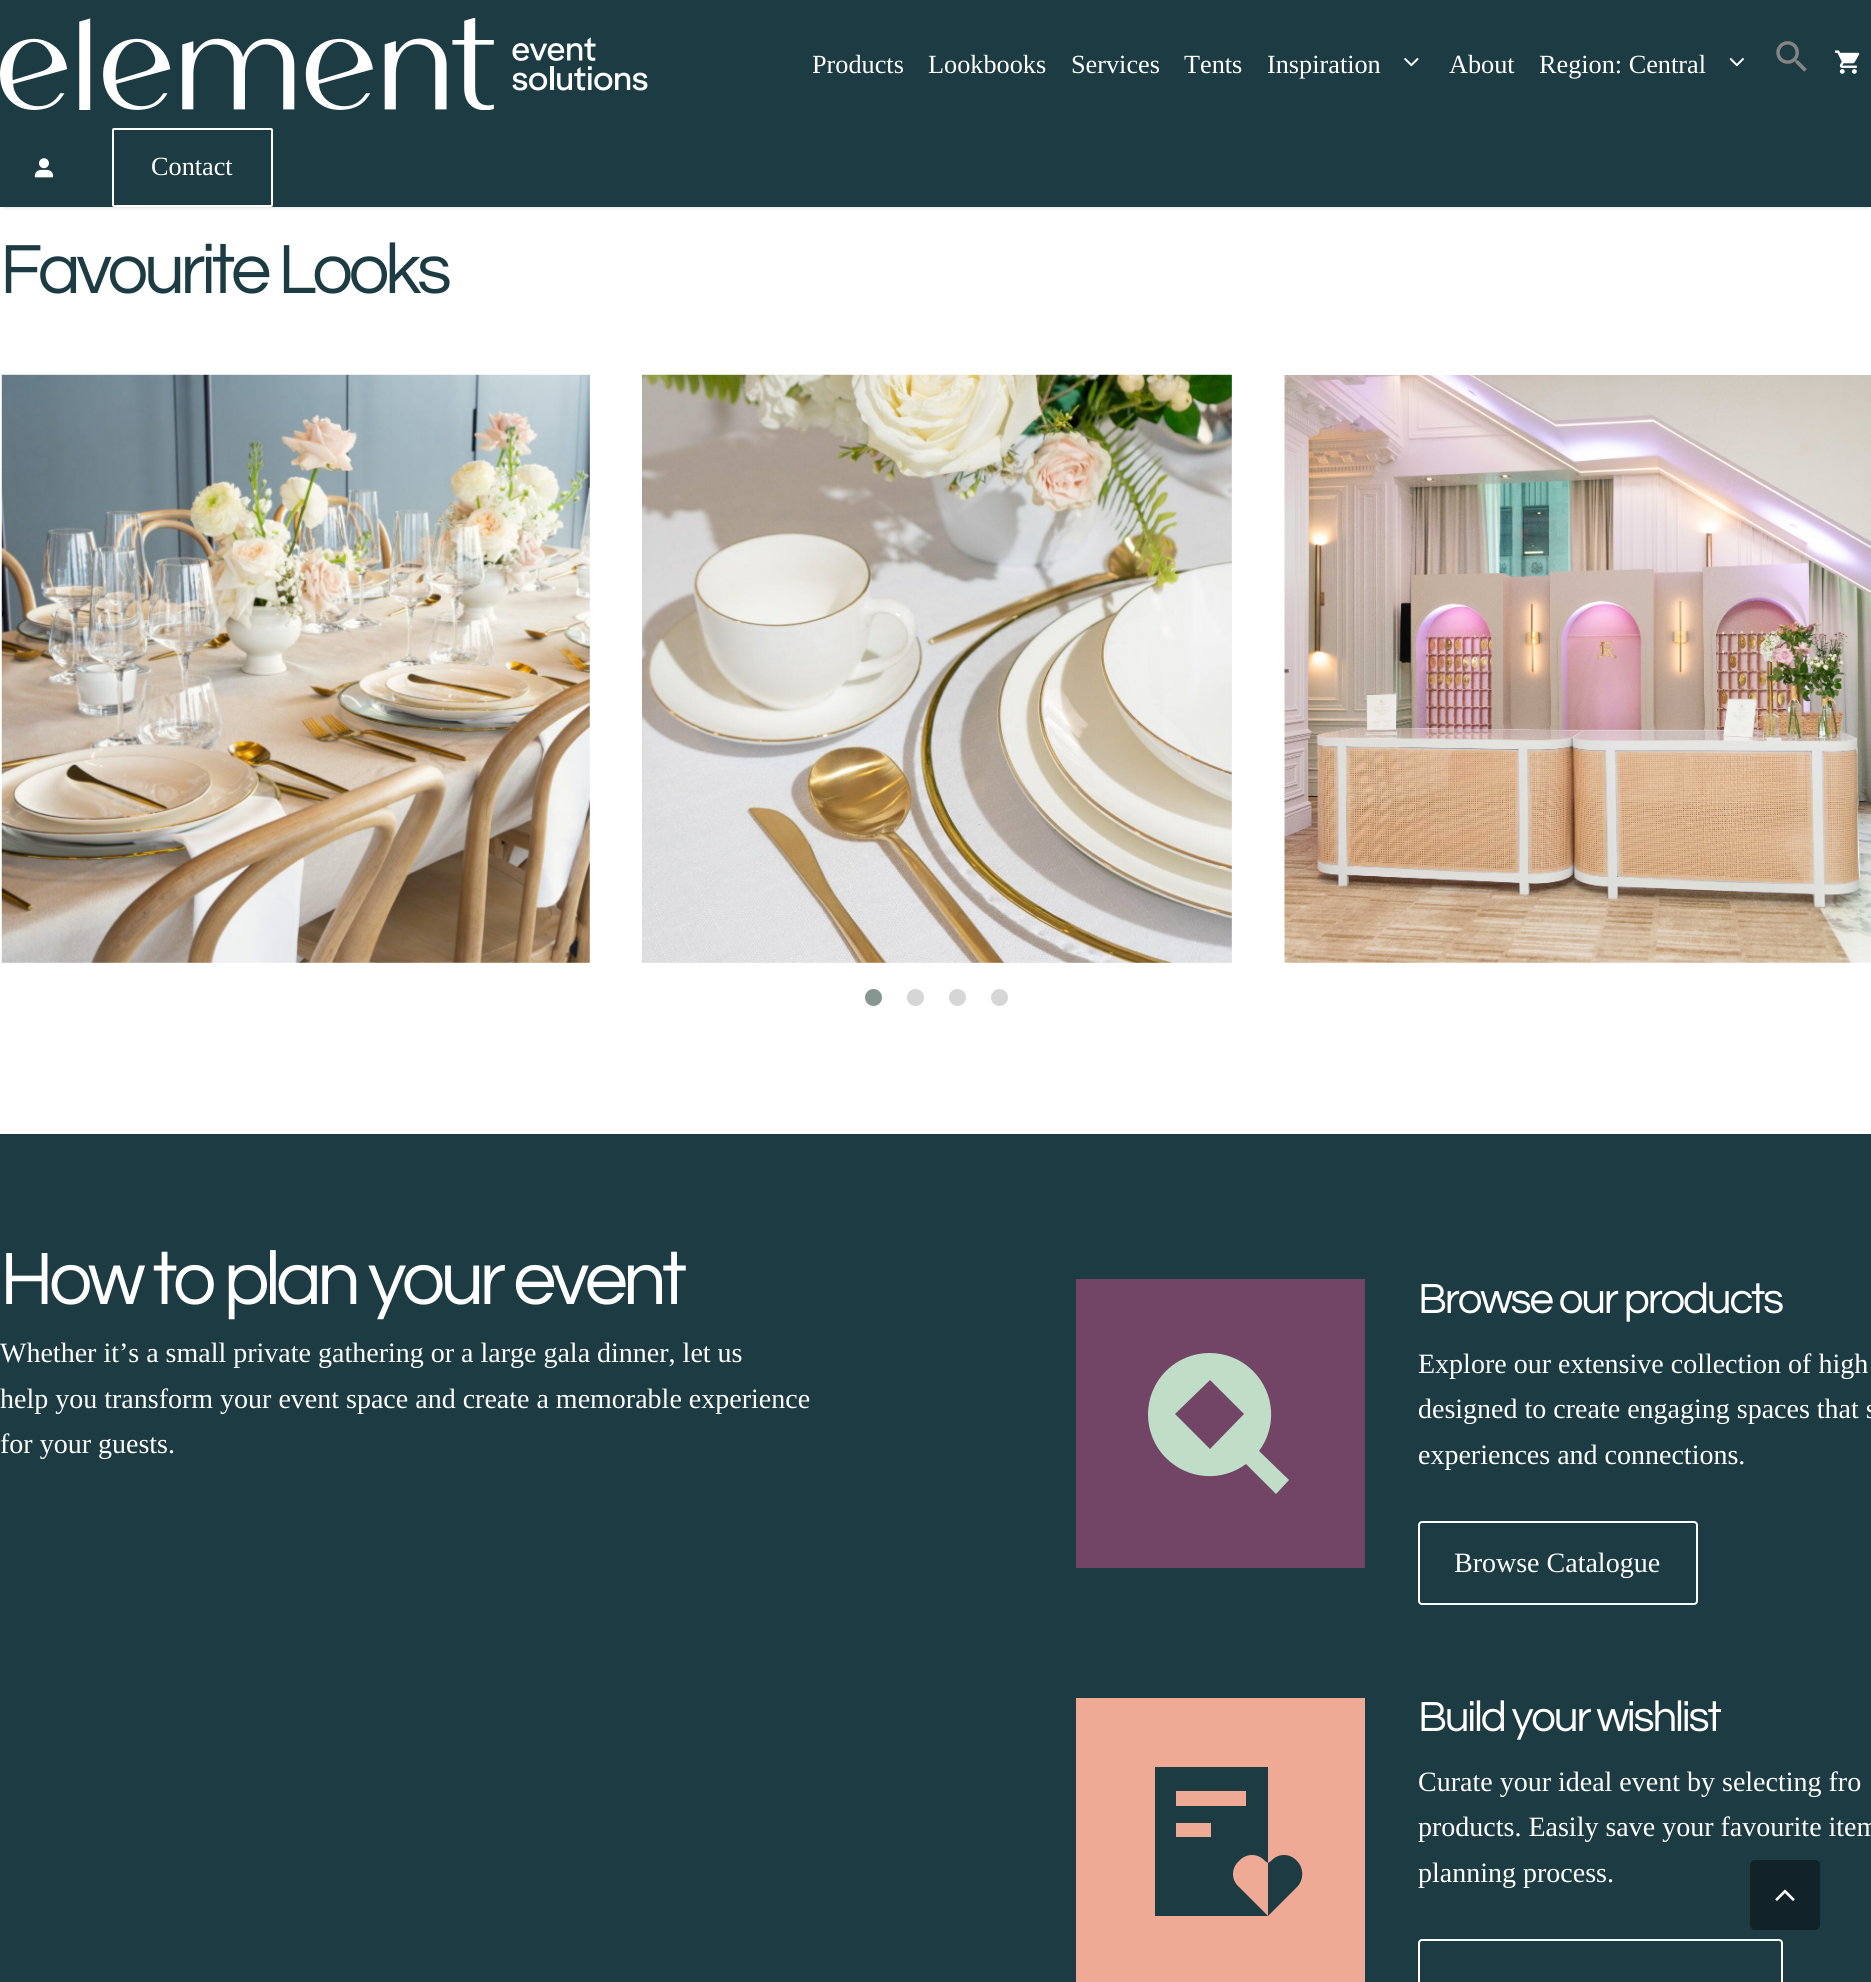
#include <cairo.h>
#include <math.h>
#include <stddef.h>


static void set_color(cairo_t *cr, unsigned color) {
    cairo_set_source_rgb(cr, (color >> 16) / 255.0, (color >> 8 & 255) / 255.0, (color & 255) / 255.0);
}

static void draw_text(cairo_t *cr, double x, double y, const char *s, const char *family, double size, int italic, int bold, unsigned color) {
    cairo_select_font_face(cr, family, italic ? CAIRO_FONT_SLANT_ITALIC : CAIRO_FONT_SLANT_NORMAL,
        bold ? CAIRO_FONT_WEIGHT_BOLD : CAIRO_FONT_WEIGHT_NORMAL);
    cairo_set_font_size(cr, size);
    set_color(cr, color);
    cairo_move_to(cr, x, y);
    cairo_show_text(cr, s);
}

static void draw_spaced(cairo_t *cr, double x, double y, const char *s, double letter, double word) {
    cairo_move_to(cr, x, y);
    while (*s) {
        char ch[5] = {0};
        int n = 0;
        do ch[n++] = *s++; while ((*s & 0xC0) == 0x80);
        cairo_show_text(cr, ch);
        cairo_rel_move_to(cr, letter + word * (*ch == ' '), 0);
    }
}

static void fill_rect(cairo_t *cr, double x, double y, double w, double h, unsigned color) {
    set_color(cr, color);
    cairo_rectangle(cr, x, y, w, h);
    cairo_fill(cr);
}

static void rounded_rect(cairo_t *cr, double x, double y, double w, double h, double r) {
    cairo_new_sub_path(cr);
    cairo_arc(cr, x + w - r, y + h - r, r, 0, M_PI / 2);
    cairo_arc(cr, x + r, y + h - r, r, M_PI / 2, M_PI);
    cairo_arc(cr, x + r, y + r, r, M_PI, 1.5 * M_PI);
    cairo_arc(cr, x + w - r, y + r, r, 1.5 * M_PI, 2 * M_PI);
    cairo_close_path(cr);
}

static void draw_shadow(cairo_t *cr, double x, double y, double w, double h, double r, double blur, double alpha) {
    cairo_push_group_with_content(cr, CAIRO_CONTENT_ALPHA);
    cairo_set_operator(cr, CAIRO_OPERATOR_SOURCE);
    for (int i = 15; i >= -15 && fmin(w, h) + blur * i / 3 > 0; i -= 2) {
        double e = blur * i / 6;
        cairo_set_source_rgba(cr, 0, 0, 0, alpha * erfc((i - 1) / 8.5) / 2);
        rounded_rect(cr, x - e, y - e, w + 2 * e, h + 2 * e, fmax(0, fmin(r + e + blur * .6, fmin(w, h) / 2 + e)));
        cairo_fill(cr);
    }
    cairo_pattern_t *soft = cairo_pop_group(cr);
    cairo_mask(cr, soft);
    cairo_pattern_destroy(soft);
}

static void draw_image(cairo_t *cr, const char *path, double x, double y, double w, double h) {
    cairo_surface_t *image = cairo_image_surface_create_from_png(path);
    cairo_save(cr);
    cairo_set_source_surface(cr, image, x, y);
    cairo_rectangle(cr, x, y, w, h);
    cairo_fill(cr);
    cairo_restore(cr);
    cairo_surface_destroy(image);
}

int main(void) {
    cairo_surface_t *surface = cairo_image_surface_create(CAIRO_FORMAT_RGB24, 1871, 1982);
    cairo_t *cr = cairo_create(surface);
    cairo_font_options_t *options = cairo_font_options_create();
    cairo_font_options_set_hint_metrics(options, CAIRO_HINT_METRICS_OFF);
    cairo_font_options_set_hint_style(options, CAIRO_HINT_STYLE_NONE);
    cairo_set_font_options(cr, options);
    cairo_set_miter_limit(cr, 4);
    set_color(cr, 0xFFFFFF);
    cairo_paint(cr);
    set_color(cr, 0x000000);
    draw_shadow(cr, 4, 7, 1865, 200, 0, 2, 0.2);
    fill_rect(cr, 0, 0, 1871, 207, 0x1C3B42);
    draw_image(cr, "assets/img1.png", 0, 18, 648, 92);
    draw_text(cr, 812, 73, "Products", "Liberation Serif", 26.25, 0, 0, 0xFFFFFF);
    draw_text(cr, 928, 73, "Lookbooks", "Liberation Serif", 26.25, 0, 0, 0xFFFFFF);
    draw_text(cr, 1071, 73, "Services", "Liberation Serif", 26.25, 0, 0, 0xFFFFFF);
    draw_text(cr, 1184, 73, "Tents", "Liberation Serif", 26.25, 0, 0, 0xFFFFFF);
    draw_text(cr, 1267, 73, "Inspiration", "Liberation Serif", 26.25, 0, 0, 0xFFFFFF);
    draw_image(cr, "assets/img2.png", 1404, 57, 15, 10);
    draw_text(cr, 1449, 73, "About", "Liberation Serif", 26.25, 0, 0, 0xFFFFFF);
    draw_text(cr, 1539, 73, "Region: Central", "Liberation Serif", 26.25, 0, 0, 0xFFFFFF);
    draw_image(cr, "assets/img3.png", 1729, 57, 15, 10);
    draw_image(cr, "assets/img4.png", 1776, 41, 31, 31);
    draw_image(cr, "assets/img5.png", 1835, 50, 25, 24);
    draw_image(cr, "assets/img6.png", 34, 158, 20, 20);
    rounded_rect(cr, 113, 129, 159, 77, 1);
    cairo_stroke(cr);
    draw_text(cr, 151, 175, "Contact", "Liberation Serif", 26.25, 0, 0, 0xFFFFFF);
    cairo_select_font_face(cr, "Questrial", CAIRO_FONT_SLANT_NORMAL, CAIRO_FONT_WEIGHT_NORMAL);
    cairo_set_font_size(cr, 72.25);
    set_color(cr, 0x1C3B42);
    draw_spaced(cr, 0, 293, "Favourite Looks", -4.3, 0);
    draw_image(cr, "assets/img7.png", 1, 374, 589, 589);
    draw_image(cr, "assets/img8.png", 642, 374, 590, 589);
    draw_image(cr, "assets/img9.png", 1284, 375, 587, 588);
    set_color(cr, 0x869791);
    cairo_arc(cr, 873.5, 997.5, 8.5, 0, 2 * M_PI);
    cairo_fill(cr);
    set_color(cr, 0xD6D6D6);
    cairo_arc(cr, 915.5, 997.5, 8.5, 0, 2 * M_PI);
    cairo_fill(cr);
    cairo_arc(cr, 957.5, 997.5, 8.5, 0, 2 * M_PI);
    cairo_fill(cr);
    cairo_arc(cr, 999.5, 997.5, 8.5, 0, 2 * M_PI);
    cairo_fill(cr);
    fill_rect(cr, 0, 1134, 1871, 848, 0x1C3B42);
    cairo_set_font_size(cr, 77);
    set_color(cr, 0xFFFFFF);
    draw_spaced(cr, 0, 1304, "How to plan your event", -4.6, 0);
    draw_text(cr, 0, 1362, "Whether it’s a small private gathering or a large gala dinner, let us", "Liberation Serif", 28, 0, 0, 0xFFFFFF);
    draw_text(cr, 0, 1408, "help you transform your event space and create a memorable experience", "Liberation Serif", 28, 0, 0, 0xFFFFFF);
    draw_text(cr, 0, 1453, "for your guests.", "Liberation Serif", 28, 0, 0, 0xFFFFFF);
    fill_rect(cr, 1076, 1279, 289, 289, 0x724465);
    set_color(cr, 0xC0DEC7);
    cairo_new_path(cr);
    cairo_move_to(cr, 1259, 1451);
    cairo_curve_to(cr, 1277, 1427, 1275, 1393, 1253, 1371);
    cairo_curve_to(cr, 1229, 1347, 1190, 1347, 1166, 1371);
    cairo_curve_to(cr, 1142, 1395, 1142, 1434, 1166, 1458);
    cairo_curve_to(cr, 1188, 1480, 1222, 1482, 1246, 1464);
    cairo_line_to(cr, 1276, 1494);
    cairo_line_to(cr, 1289, 1480);
    cairo_close_path(cr);
    cairo_move_to(cr, 1210, 1449);
    cairo_line_to(cr, 1175, 1414);
    cairo_line_to(cr, 1210, 1380);
    cairo_line_to(cr, 1244, 1414);
    cairo_close_path(cr);
    cairo_fill(cr);
    cairo_select_font_face(cr, "Questrial", CAIRO_FONT_SLANT_NORMAL, CAIRO_FONT_WEIGHT_NORMAL);
    cairo_set_font_size(cr, 43.75);
    set_color(cr, 0xFFFFFF);
    draw_spaced(cr, 1418, 1313, "Browse our products", -2.2, 0);
    draw_text(cr, 1418, 1373, "Explore our extensive collection of high", "Liberation Serif", 28, 0, 0, 0xFFFFFF);
    draw_text(cr, 1418, 1418, "designed to create engaging spaces that s", "Liberation Serif", 28, 0, 0, 0xFFFFFF);
    draw_text(cr, 1418, 1464, "experiences and connections.", "Liberation Serif", 28, 0, 0, 0xFFFFFF);
    rounded_rect(cr, 1419, 1522, 278, 82, 3);
    cairo_stroke(cr);
    draw_text(cr, 1454, 1572, "Browse Catalogue", "Liberation Serif", 28, 0, 0, 0xFFFFFF);
    fill_rect(cr, 1076, 1698, 289, 284, 0xEFAA96);
    set_color(cr, 0x1C3B42);
    cairo_new_path(cr);
    cairo_move_to(cr, 1155, 1767);
    cairo_line_to(cr, 1155, 1916);
    cairo_line_to(cr, 1268, 1916);
    cairo_line_to(cr, 1239, 1887);
    cairo_curve_to(cr, 1231, 1880, 1231, 1868, 1239, 1861);
    cairo_curve_to(cr, 1246, 1853, 1258, 1853, 1265, 1861);
    cairo_line_to(cr, 1268, 1863);
    cairo_line_to(cr, 1268, 1767);
    cairo_close_path(cr);
    cairo_move_to(cr, 1211, 1837);
    cairo_line_to(cr, 1176, 1837);
    cairo_line_to(cr, 1176, 1823);
    cairo_line_to(cr, 1211, 1823);
    cairo_close_path(cr);
    cairo_move_to(cr, 1246, 1806);
    cairo_line_to(cr, 1176, 1806);
    cairo_line_to(cr, 1176, 1791);
    cairo_line_to(cr, 1246, 1791);
    cairo_close_path(cr);
    cairo_fill(cr);
    cairo_new_path(cr);
    cairo_move_to(cr, 1297, 1861);
    cairo_curve_to(cr, 1290, 1853, 1278, 1853, 1271, 1861);
    cairo_line_to(cr, 1268, 1863);
    cairo_line_to(cr, 1268, 1916);
    cairo_line_to(cr, 1297, 1887);
    cairo_curve_to(cr, 1304, 1880, 1304, 1868, 1297, 1861);
    cairo_close_path(cr);
    cairo_fill(cr);
    cairo_select_font_face(cr, "Questrial", CAIRO_FONT_SLANT_NORMAL, CAIRO_FONT_WEIGHT_NORMAL);
    cairo_set_font_size(cr, 43.75);
    set_color(cr, 0xFFFFFF);
    draw_spaced(cr, 1418, 1731, "Build your wishlist", -2.2, 0);
    draw_text(cr, 1418, 1791, "Curate your ideal event by selecting fro", "Liberation Serif", 28, 0, 0, 0xFFFFFF);
    draw_text(cr, 1418, 1836, "products. Easily save your favourite item", "Liberation Serif", 28, 0, 0, 0xFFFFFF);
    draw_text(cr, 1418, 1882, "planning process.", "Liberation Serif", 28, 0, 0, 0xFFFFFF);
    rounded_rect(cr, 1419, 1940, 363, 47, 3);
    cairo_stroke(cr);
    set_color(cr, 0x112328);
    rounded_rect(cr, 1750, 1860, 70, 70, 5);
    cairo_fill(cr);
    draw_image(cr, "assets/img10.png", 1775, 1889, 20, 12);
    cairo_surface_write_to_png(surface, "output.png");
    cairo_font_options_destroy(options);
    cairo_destroy(cr);
    cairo_surface_destroy(surface);
    return 0;
}
